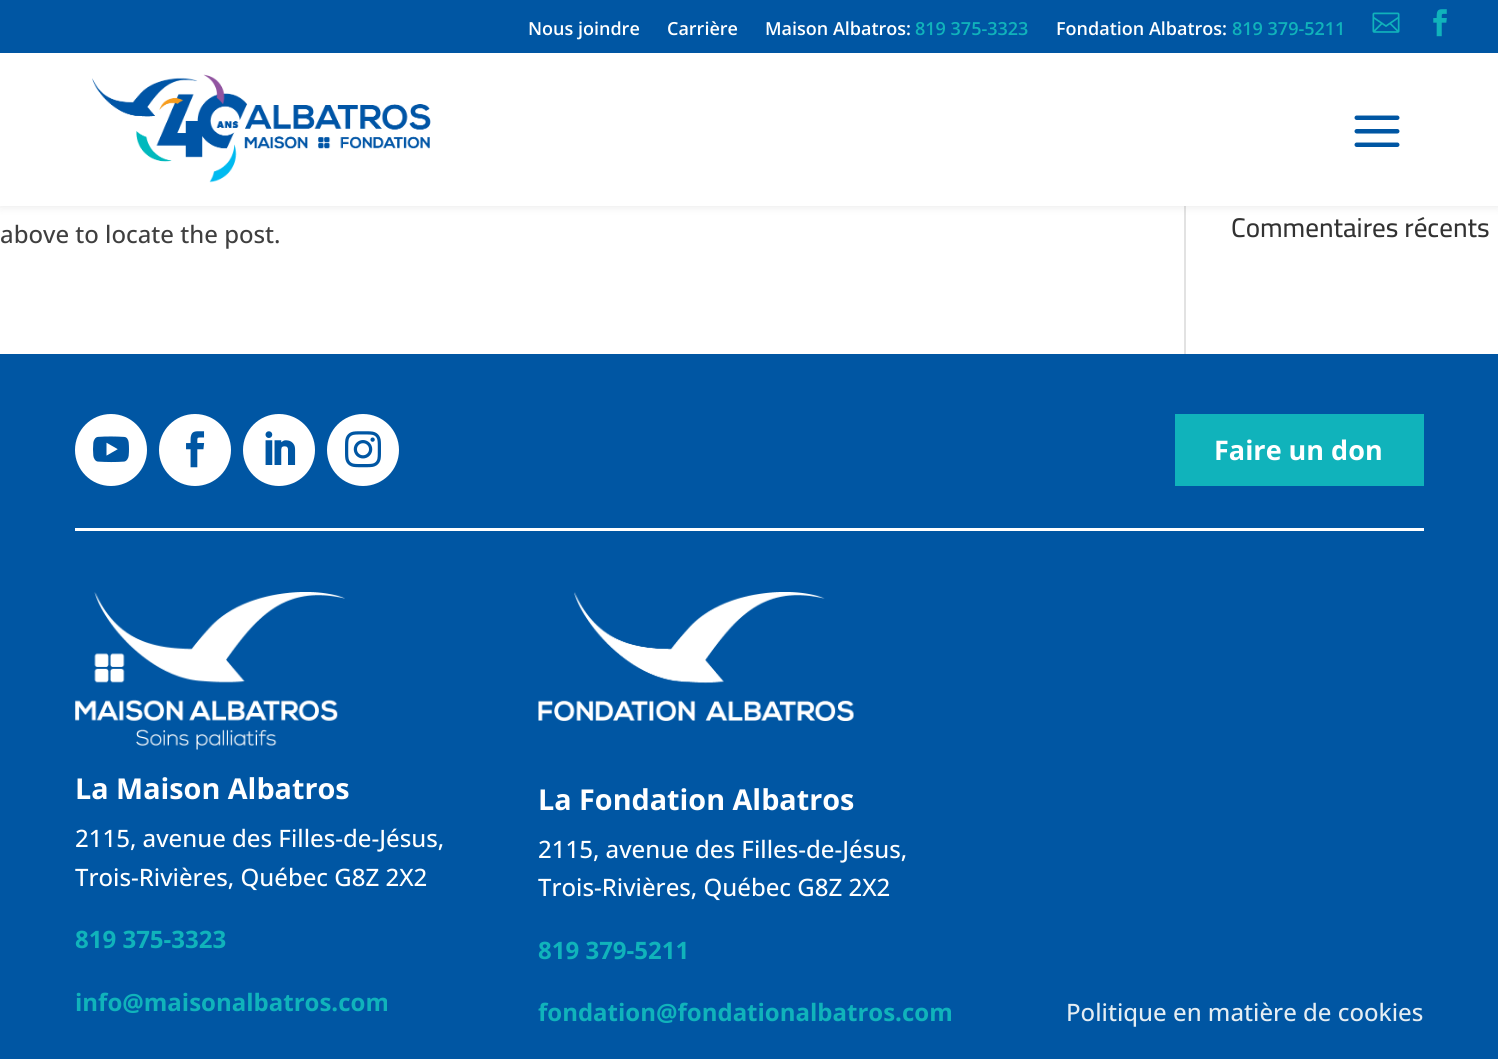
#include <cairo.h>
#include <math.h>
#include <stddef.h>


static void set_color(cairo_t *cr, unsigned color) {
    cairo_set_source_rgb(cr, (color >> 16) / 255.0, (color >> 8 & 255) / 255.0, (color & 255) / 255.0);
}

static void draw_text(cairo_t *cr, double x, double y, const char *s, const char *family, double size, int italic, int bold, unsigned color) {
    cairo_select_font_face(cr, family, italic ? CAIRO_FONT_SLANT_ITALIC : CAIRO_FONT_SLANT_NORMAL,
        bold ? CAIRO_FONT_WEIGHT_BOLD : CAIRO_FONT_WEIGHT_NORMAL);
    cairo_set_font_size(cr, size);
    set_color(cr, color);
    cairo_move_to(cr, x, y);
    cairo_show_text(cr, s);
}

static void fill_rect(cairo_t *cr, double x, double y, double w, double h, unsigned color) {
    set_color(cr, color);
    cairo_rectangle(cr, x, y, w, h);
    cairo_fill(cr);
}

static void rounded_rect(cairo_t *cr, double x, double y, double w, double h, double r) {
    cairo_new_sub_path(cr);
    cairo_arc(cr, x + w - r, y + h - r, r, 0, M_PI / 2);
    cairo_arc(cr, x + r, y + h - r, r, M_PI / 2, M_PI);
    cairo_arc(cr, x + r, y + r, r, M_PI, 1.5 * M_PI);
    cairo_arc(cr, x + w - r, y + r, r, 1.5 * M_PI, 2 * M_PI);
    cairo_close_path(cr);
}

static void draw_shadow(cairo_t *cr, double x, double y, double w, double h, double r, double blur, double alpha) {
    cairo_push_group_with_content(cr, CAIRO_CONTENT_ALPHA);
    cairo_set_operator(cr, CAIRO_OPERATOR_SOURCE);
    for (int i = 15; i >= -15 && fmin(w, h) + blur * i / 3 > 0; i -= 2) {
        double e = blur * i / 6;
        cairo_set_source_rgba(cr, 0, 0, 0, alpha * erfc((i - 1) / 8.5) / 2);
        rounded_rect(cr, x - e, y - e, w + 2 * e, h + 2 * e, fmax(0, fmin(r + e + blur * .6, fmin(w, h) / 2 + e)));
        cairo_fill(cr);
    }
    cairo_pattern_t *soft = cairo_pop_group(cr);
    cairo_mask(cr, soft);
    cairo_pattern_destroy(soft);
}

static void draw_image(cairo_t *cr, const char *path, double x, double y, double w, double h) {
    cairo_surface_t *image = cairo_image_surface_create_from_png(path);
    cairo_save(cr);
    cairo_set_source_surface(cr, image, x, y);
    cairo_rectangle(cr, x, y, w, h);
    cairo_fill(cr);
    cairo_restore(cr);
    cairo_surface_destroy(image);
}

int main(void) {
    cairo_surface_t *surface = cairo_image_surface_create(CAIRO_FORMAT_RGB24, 1498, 1059);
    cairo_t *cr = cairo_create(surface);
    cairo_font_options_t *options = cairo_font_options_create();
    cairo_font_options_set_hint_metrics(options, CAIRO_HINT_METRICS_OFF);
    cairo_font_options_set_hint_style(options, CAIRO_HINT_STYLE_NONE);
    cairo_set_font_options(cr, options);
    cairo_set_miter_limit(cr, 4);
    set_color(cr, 0xFFFFFF);
    cairo_paint(cr);
    fill_rect(cr, 1184, 206, 2, 148, 0xE2E2E2);
    set_color(cr, 0x000000);
    draw_shadow(cr, 0, 53, 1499, 153, 0, 5, 0.1);
    fill_rect(cr, 0, 0, 1498, 53, 0x0056A3);
    draw_text(cr, 528, 35, "Nous joindre", "Open Sans SemiBold", 18, 0, 0, 0xFFFFFF);
    draw_text(cr, 667, 35, "Carrière", "Open Sans SemiBold", 18, 0, 0, 0xFFFFFF);
    draw_text(cr, 765, 35, "Maison Albatros:", "Open Sans SemiBold", 18, 0, 0, 0xFFFFFF);
    draw_text(cr, 915, 35, "819 375-3323", "Open Sans SemiBold", 18, 0, 0, 0x10B3BB);
    draw_text(cr, 1056, 35, "Fondation Albatros:", "Open Sans SemiBold", 18, 0, 0, 0xFFFFFF);
    draw_text(cr, 1232, 35, "819 379-5211", "Open Sans SemiBold", 18, 0, 0, 0x10B3BB);
    draw_image(cr, "assets/img1.png", 1372, 12, 28, 21);
    draw_image(cr, "assets/img2.png", 1433, 9, 14, 28);
    fill_rect(cr, 0, 53, 1498, 153, 0xFFFFFF);
    draw_image(cr, "assets/img3.png", 92, 74, 339, 109);
    draw_image(cr, "assets/img4.png", 1354, 115, 46, 32);
    draw_text(cr, 0, 243, "above to locate the post.", "Open Sans Medium", 24, 0, 0, 0x3F3F3F);
    draw_text(cr, 1231, 237, "Commentaires récents", "Cairo Medium", 27, 0, 0, 0x323232);
    fill_rect(cr, 0, 354, 1498, 705, 0x0056A3);
    set_color(cr, 0xFFFFFF);
    cairo_new_path(cr);
    cairo_arc(cr, 111, 450, 36, 0, 2 * M_PI);
    cairo_fill(cr);
    draw_image(cr, "assets/img5.png", 93, 436, 36, 27);
    cairo_arc(cr, 195, 450, 36, 0, 2 * M_PI);
    cairo_fill(cr);
    draw_image(cr, "assets/img6.png", 186, 431, 19, 37);
    cairo_arc(cr, 279, 450, 36, 0, 2 * M_PI);
    cairo_fill(cr);
    draw_image(cr, "assets/img7.png", 265, 431, 31, 34);
    cairo_arc(cr, 363, 450, 36, 0, 2 * M_PI);
    cairo_fill(cr);
    draw_image(cr, "assets/img8.png", 345, 431, 36, 37);
    fill_rect(cr, 1175, 414, 249, 72, 0x10B3BB);
    draw_text(cr, 1214, 460, "Faire un don", "Open Sans", 27, 0, 1, 0xFFFFFF);
    fill_rect(cr, 75, 528, 1349, 3, 0xFFFFFF);
    draw_image(cr, "assets/img9.png", 75, 592, 270, 158);
    draw_text(cr, 75, 799, "La Maison Albatros", "Open Sans", 28.75, 0, 1, 0xFFFFFF);
    draw_text(cr, 75, 847, "2115, avenue des Filles-de-Jésus,", "Open Sans Medium", 24, 0, 0, 0xFFFFFF);
    draw_text(cr, 75, 886, "Trois-Rivières, Québec G8Z 2X2", "Open Sans Medium", 24, 0, 0, 0xFFFFFF);
    draw_text(cr, 75, 948, "819 375-3323", "Open Sans", 24, 0, 1, 0x10B3BB);
    draw_text(cr, 75, 1011, "info@maisonalbatros.com", "Open Sans", 24, 0, 1, 0x10B3BB);
    draw_image(cr, "assets/img10.png", 538, 592, 316, 129);
    draw_text(cr, 538, 810, "La Fondation Albatros", "Open Sans", 28.75, 0, 1, 0xFFFFFF);
    draw_text(cr, 538, 858, "2115, avenue des Filles-de-Jésus,", "Open Sans Medium", 24, 0, 0, 0xFFFFFF);
    draw_text(cr, 538, 896, "Trois-Rivières, Québec G8Z 2X2", "Open Sans Medium", 24, 0, 0, 0xFFFFFF);
    draw_text(cr, 538, 959, "819 379-5211", "Open Sans", 24, 0, 1, 0x10B3BB);
    draw_text(cr, 538, 1021, "fondation@fondationalbatros.com", "Open Sans", 24, 0, 1, 0x10B3BB);
    draw_text(cr, 1066, 1021, "Politique en matière de cookies", "Open Sans Medium", 24, 0, 0, 0xE4EDF3);
    cairo_surface_write_to_png(surface, "output.png");
    cairo_font_options_destroy(options);
    cairo_destroy(cr);
    cairo_surface_destroy(surface);
    return 0;
}
